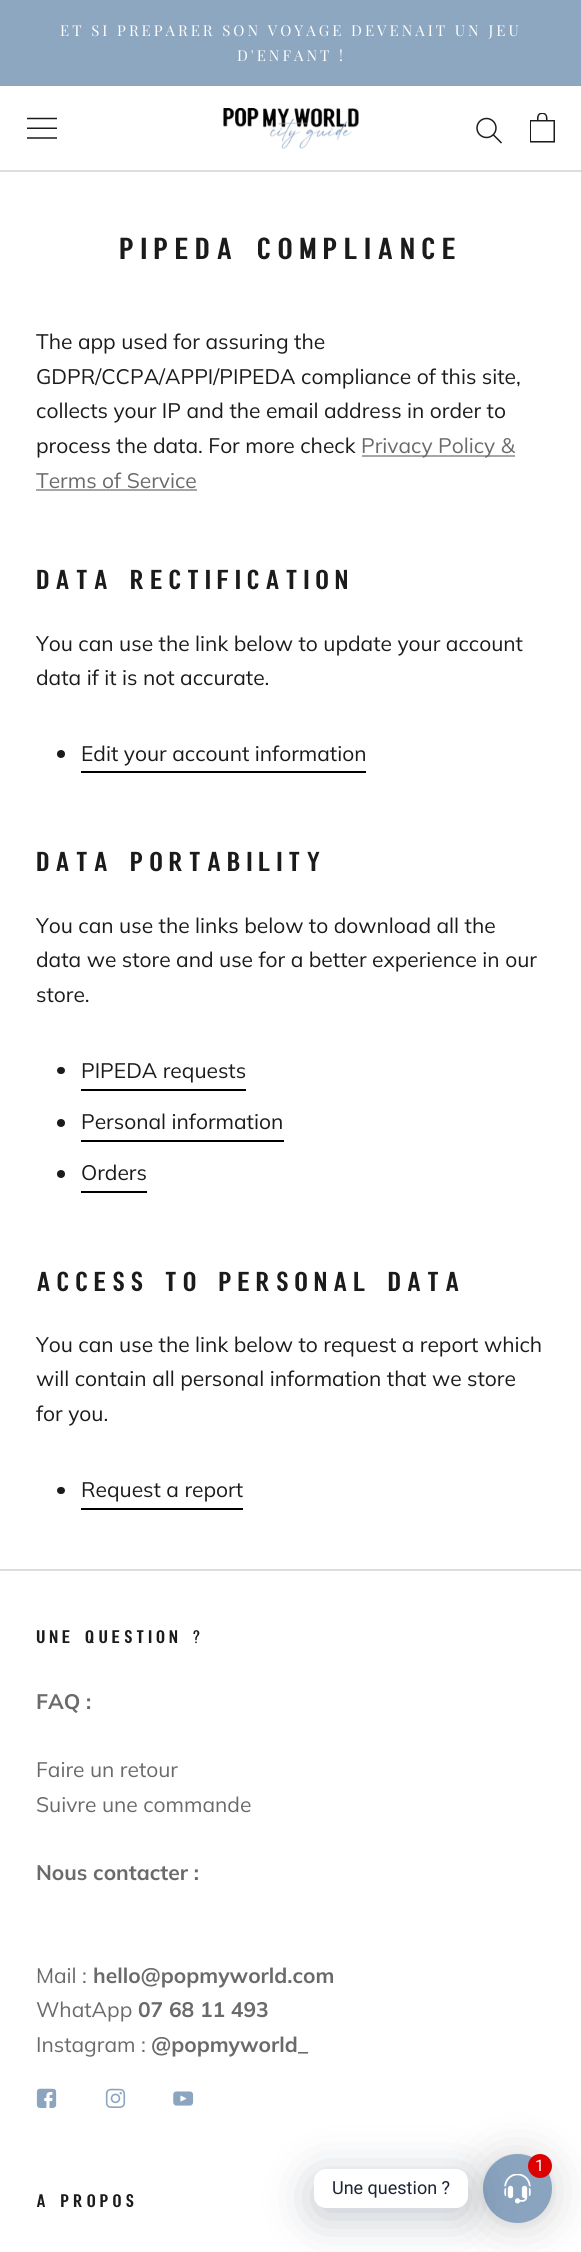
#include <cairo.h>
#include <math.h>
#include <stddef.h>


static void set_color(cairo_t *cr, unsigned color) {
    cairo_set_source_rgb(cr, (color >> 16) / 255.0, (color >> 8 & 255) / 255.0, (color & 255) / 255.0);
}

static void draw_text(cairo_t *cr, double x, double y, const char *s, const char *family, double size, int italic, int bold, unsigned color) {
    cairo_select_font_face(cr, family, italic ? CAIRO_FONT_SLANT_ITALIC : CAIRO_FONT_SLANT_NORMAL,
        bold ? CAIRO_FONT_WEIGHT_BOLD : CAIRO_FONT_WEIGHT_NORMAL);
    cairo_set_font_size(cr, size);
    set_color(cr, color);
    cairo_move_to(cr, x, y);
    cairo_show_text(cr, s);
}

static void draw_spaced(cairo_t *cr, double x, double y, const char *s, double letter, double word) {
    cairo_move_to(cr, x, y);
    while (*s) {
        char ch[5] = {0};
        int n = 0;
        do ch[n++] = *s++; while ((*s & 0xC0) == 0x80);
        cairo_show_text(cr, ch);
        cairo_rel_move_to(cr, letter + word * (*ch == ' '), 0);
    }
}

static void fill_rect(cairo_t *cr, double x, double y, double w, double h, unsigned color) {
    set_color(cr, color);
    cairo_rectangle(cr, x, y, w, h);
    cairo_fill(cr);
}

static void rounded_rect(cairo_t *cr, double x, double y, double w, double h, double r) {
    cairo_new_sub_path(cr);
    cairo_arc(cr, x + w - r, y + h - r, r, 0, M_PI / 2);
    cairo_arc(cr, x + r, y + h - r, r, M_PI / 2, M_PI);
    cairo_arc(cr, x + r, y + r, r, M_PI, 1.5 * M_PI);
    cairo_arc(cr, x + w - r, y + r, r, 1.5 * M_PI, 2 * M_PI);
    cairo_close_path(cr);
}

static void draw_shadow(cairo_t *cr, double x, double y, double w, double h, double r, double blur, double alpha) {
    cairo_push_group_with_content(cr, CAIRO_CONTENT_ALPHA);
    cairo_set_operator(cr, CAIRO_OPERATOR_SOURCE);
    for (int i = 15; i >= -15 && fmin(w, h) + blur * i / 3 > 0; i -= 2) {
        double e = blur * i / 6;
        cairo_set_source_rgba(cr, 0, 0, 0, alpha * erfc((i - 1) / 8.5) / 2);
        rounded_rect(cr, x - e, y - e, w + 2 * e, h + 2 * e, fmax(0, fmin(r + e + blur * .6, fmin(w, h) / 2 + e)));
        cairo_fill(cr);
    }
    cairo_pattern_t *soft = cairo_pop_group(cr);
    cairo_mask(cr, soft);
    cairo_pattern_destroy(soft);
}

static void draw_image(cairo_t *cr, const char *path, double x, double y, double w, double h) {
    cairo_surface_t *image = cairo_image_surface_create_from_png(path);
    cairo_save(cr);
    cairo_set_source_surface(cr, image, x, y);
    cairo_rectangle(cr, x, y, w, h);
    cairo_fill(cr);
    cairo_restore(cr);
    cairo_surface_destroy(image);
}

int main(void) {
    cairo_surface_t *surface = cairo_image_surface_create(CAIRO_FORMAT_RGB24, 581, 2252);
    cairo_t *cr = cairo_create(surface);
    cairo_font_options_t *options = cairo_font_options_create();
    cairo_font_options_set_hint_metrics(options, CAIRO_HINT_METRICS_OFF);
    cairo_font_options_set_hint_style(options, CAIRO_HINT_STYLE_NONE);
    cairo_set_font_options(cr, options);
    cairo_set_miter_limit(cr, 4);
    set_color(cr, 0xFFFFFF);
    cairo_paint(cr);
    fill_rect(cr, 0, 0, 581, 86, 0x8DA7C1);
    cairo_select_font_face(cr, "Playfair Display", CAIRO_FONT_SLANT_NORMAL, CAIRO_FONT_WEIGHT_NORMAL);
    cairo_set_font_size(cr, 15);
    set_color(cr, 0xFFFFFF);
    draw_spaced(cr, 60, 36, "ET SI PREPARER SON VOYAGE DEVENAIT UN JEU", 3, 0);
    draw_spaced(cr, 237, 61, "D'ENFANT !", 3, 0);
    fill_rect(cr, 0, 170, 581, 2, 0xDDDDDD);
    draw_image(cr, "assets/img1.png", 27, 117, 30, 22);
    draw_image(cr, "assets/img2.png", 223, 108, 136, 41);
    cairo_new_path(cr);
    cairo_move_to(cr, 501, 142.5);
    cairo_line_to(cr, 493.5, 135);
    set_color(cr, 0x1C1B1B);
    cairo_set_line_width(cr, 1.5);
    cairo_set_line_cap(cr, CAIRO_LINE_CAP_SQUARE);
    cairo_stroke(cr);
    cairo_arc(cr, 486.5, 128, 9.5, 0, 2 * M_PI);
    cairo_set_line_cap(cr, CAIRO_LINE_CAP_BUTT);
    cairo_stroke(cr);
    draw_image(cr, "assets/img3.png", 530, 113, 25, 30);
    cairo_select_font_face(cr, "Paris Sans", CAIRO_FONT_SLANT_NORMAL, CAIRO_FONT_WEIGHT_NORMAL);
    cairo_set_font_size(cr, 30);
    draw_spaced(cr, 119, 259, "PIPEDA COMPLIANCE", 6, 0);
    draw_text(cr, 36, 349, "The app used for assuring the", "Muli", 21, 0, 0, 0x1C1B1B);
    draw_text(cr, 36, 384, "GDPR/CCPA/APPI/PIPEDA compliance of this site,", "Muli", 21, 0, 0, 0x1C1B1B);
    draw_text(cr, 36, 418, "collects your IP and the email address in order to", "Muli", 21, 0, 0, 0x1C1B1B);
    draw_text(cr, 36, 453, "process the data. For more check", "Muli", 21, 0, 0, 0x1C1B1B);
    fill_rect(cr, 362, 455, 153, 2, 0xA6A6A6);
    draw_text(cr, 361, 453, "Privacy Policy &", "Muli", 21, 0, 0, 0x6A6A6A);
    draw_text(cr, 36, 488, "Terms of Service", "Muli", 21, 0, 0, 0x6A6A6A);
    fill_rect(cr, 36, 489, 161, 2, 0xA6A6A6);
    cairo_select_font_face(cr, "Paris Sans", CAIRO_FONT_SLANT_NORMAL, CAIRO_FONT_WEIGHT_NORMAL);
    cairo_set_font_size(cr, 27);
    set_color(cr, 0x1C1B1B);
    draw_spaced(cr, 36, 589, "DATA RECTIFICATION", 5.4, 0);
    draw_text(cr, 36, 651, "You can use the link below to update your account", "Muli", 21, 0, 0, 0x1C1B1B);
    draw_text(cr, 36, 685, "data if it is not accurate.", "Muli", 21, 0, 0, 0x1C1B1B);
    cairo_new_path(cr);
    cairo_arc(cr, 61, 754, 4, 0, 2 * M_PI);
    cairo_fill(cr);
    fill_rect(cr, 81, 771, 285, 2, 0x000000);
    draw_text(cr, 81, 761, "Edit your account information", "Muli", 21, 0, 0, 0x1C1B1B);
    cairo_select_font_face(cr, "Paris Sans", CAIRO_FONT_SLANT_NORMAL, CAIRO_FONT_WEIGHT_NORMAL);
    cairo_set_font_size(cr, 27);
    draw_spaced(cr, 36, 871, "DATA PORTABILITY", 5.4, 0);
    draw_text(cr, 36, 933, "You can use the links below to download all the", "Muli", 21, 0, 0, 0x1C1B1B);
    draw_text(cr, 36, 967, "data we store and use for a better experience in our", "Muli", 21, 0, 0, 0x1C1B1B);
    draw_text(cr, 36, 1002, "store.", "Muli", 21, 0, 0, 0x1C1B1B);
    rounded_rect(cr, 57, 1067, 8, 7, 3.5);
    cairo_fill(cr);
    fill_rect(cr, 81, 1089, 165, 2, 0x000000);
    draw_text(cr, 81, 1078, "PIPEDA requests", "Muli", 21, 0, 0, 0x1C1B1B);
    cairo_new_path(cr);
    cairo_arc(cr, 61, 1123, 4, 0, 2 * M_PI);
    cairo_fill(cr);
    fill_rect(cr, 81, 1140, 203, 2, 0x000000);
    draw_text(cr, 81, 1129, "Personal information", "Muli", 21, 0, 0, 0x1C1B1B);
    cairo_new_path(cr);
    cairo_arc(cr, 61, 1174, 4, 0, 2 * M_PI);
    cairo_fill(cr);
    fill_rect(cr, 81, 1191, 66, 2, 0x000000);
    draw_text(cr, 81, 1180, "Orders", "Muli", 21, 0, 0, 0x1C1B1B);
    cairo_select_font_face(cr, "Paris Sans", CAIRO_FONT_SLANT_NORMAL, CAIRO_FONT_WEIGHT_NORMAL);
    cairo_set_font_size(cr, 27);
    draw_spaced(cr, 36, 1291, "ACCESS TO PERSONAL DATA", 5.4, 0);
    draw_text(cr, 36, 1352, "You can use the link below to request a report which", "Muli", 21, 0, 0, 0x1C1B1B);
    draw_text(cr, 36, 1386, "will contain all personal information that we store", "Muli", 21, 0, 0, 0x1C1B1B);
    draw_text(cr, 36, 1421, "for you.", "Muli", 21, 0, 0, 0x1C1B1B);
    rounded_rect(cr, 57, 1487, 8, 7, 3.5);
    cairo_fill(cr);
    fill_rect(cr, 81, 1508, 162, 2, 0x000000);
    draw_text(cr, 81, 1497, "Request a report", "Muli", 21, 0, 0, 0x1C1B1B);
    fill_rect(cr, 0, 1569, 581, 2, 0xDDDDDD);
    cairo_select_font_face(cr, "Paris Sans", CAIRO_FONT_SLANT_NORMAL, CAIRO_FONT_WEIGHT_NORMAL);
    cairo_set_font_size(cr, 18);
    set_color(cr, 0x1C1B1B);
    draw_spaced(cr, 36, 1643, "UNE QUESTION ?", 3.6, 0);
    draw_text(cr, 36, 1709, "FAQ :", "Muli", 21, 0, 1, 0x6A6A6A);
    draw_text(cr, 36, 1777, "Faire un retour", "Muli", 21, 0, 0, 0x6A6A6A);
    draw_text(cr, 36, 1812, "Suivre une commande", "Muli", 21, 0, 0, 0x6A6A6A);
    draw_text(cr, 36, 1880, "Nous contacter :", "Muli", 21, 0, 1, 0x6A6A6A);
    draw_text(cr, 36, 1983, "Mail :", "Muli", 21, 0, 0, 0x6A6A6A);
    draw_text(cr, 93, 1983, "hello@popmyworld.com", "Muli", 21, 0, 1, 0x6A6A6A);
    draw_text(cr, 36, 2017, "WhatApp", "Muli", 21, 0, 0, 0x6A6A6A);
    draw_text(cr, 138, 2017, "07 68 11 493", "Muli", 21, 0, 1, 0x6A6A6A);
    draw_text(cr, 36, 2052, "Instagram :", "Muli", 21, 0, 0, 0x6A6A6A);
    draw_text(cr, 151, 2052, "@popmyworld_", "Muli", 21, 0, 1, 0x6A6A6A);
    draw_image(cr, "assets/img4.png", 36, 2088, 21, 20);
    draw_image(cr, "assets/img5.png", 105, 2088, 21, 20);
    draw_image(cr, "assets/img6.png", 173, 2091, 21, 15);
    cairo_select_font_face(cr, "Paris Sans", CAIRO_FONT_SLANT_NORMAL, CAIRO_FONT_WEIGHT_NORMAL);
    cairo_set_font_size(cr, 18);
    set_color(cr, 0x1C1B1B);
    draw_spaced(cr, 36, 2207, "A PROPOS", 3.6, 0);
    set_color(cr, 0x000000);
    draw_shadow(cr, 483, 2157, 69, 69, 34.5, 24, 0.16);
    draw_shadow(cr, 483, 2156, 69, 69, 34.5, 4.5, 0.06);
    set_color(cr, 0x8AA4BF);
    cairo_arc(cr, 517.5, 2188.5, 34.5, 0, 2 * M_PI);
    cairo_fill(cr);
    set_color(cr, 0x00122E);
    draw_shadow(cr, 314, 2178, 154, 39, 12, 24, 0.24);
    draw_image(cr, "assets/img7.png", 504, 2174, 27, 30);
    set_color(cr, 0xDD0000);
    cairo_arc(cr, 540, 2166, 12, 0, 2 * M_PI);
    cairo_fill(cr);
    draw_text(cr, 535, 2171, "1", "Roboto", 16, 0, 0, 0xFFFFFF);
    rounded_rect(cr, 314, 2169, 154, 39, 12);
    cairo_fill(cr);
    draw_text(cr, 332, 2194, "Une question ?", "Roboto", 18, 0, 0, 0x1E2433);
    cairo_surface_write_to_png(surface, "output.png");
    cairo_font_options_destroy(options);
    cairo_destroy(cr);
    cairo_surface_destroy(surface);
    return 0;
}
